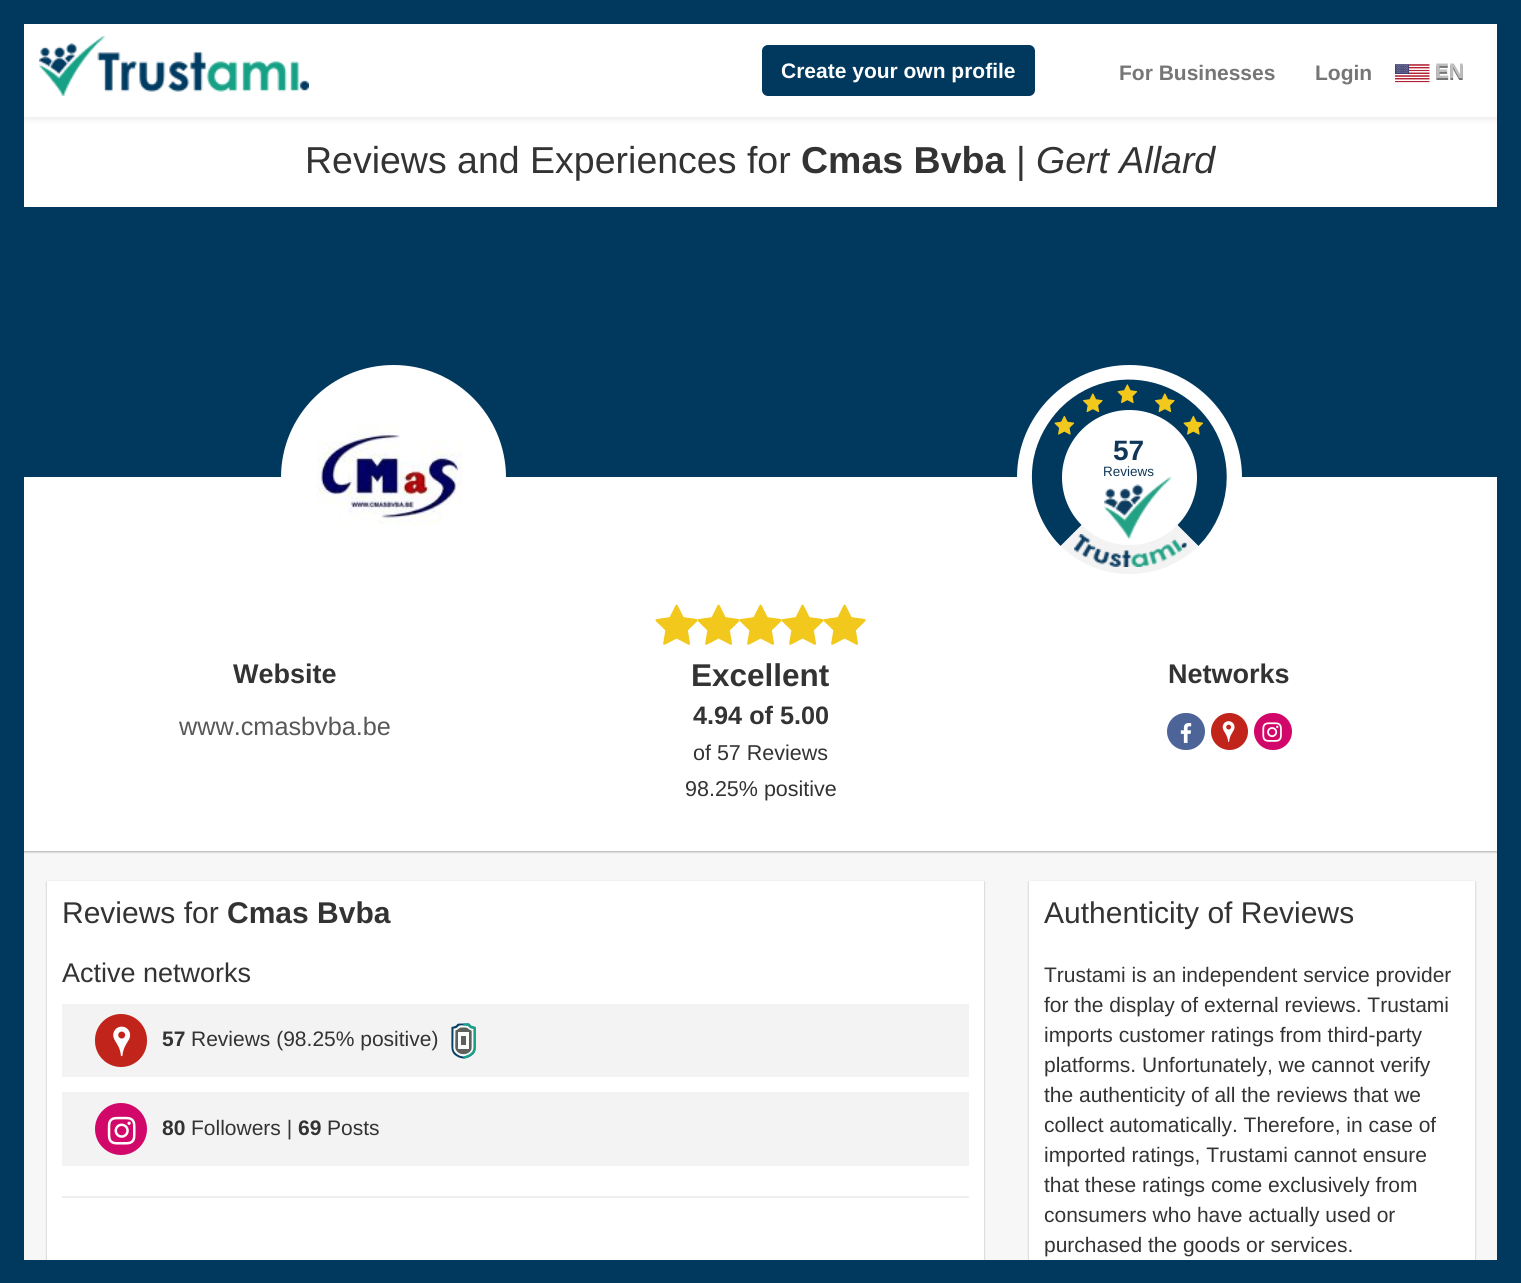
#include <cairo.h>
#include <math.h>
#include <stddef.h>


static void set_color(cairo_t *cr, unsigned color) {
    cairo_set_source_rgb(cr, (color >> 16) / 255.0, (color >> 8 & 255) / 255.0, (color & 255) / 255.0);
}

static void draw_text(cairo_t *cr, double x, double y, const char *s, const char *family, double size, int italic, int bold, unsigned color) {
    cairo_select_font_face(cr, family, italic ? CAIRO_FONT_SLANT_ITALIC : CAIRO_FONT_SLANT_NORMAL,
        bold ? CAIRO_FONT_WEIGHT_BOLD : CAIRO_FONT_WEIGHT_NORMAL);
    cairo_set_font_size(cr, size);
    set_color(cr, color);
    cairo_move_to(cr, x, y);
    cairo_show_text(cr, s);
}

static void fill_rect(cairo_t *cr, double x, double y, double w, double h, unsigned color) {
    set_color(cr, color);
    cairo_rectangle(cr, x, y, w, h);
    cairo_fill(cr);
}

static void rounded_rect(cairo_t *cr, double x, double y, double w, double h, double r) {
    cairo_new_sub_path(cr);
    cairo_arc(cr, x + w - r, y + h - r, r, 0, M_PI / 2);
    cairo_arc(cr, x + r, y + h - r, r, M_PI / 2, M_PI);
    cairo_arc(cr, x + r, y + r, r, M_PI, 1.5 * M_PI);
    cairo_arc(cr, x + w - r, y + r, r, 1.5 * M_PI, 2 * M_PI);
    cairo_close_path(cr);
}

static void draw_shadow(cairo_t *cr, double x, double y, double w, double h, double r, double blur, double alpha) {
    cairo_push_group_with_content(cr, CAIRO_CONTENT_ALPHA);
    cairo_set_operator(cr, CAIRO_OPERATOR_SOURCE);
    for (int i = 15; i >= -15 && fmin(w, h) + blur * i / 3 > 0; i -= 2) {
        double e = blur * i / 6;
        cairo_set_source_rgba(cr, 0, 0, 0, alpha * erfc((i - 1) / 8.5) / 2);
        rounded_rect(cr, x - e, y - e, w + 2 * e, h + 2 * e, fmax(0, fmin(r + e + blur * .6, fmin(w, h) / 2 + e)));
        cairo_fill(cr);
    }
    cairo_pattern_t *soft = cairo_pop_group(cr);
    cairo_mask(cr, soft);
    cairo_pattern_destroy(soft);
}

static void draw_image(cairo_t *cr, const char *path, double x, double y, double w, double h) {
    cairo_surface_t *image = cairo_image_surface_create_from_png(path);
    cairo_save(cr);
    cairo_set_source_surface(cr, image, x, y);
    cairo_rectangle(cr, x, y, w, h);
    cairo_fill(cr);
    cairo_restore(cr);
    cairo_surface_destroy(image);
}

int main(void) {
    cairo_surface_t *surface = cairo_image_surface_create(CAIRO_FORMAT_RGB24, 1521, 1283);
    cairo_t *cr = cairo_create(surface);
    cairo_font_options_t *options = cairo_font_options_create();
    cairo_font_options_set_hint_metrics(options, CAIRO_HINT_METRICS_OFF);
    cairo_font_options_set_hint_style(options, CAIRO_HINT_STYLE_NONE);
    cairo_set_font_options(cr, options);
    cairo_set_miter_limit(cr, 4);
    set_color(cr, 0xF7F7F7);
    cairo_paint(cr);
    set_color(cr, 0x000000);
    draw_shadow(cr, 24, 119, 1473, 733, 0, 1, 0.3);
    fill_rect(cr, 24, 117, 1473, 734, 0xFFFFFF);
    set_color(cr, 0x000000);
    draw_shadow(cr, 24, 15, 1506, 105, 0, 3, 0.07);
    fill_rect(cr, 24, 24, 1473, 93, 0xFFFFFF);
    draw_image(cr, "assets/img1.png", 39, 36, 270, 60);
    set_color(cr, 0x00385E);
    rounded_rect(cr, 763, 46, 271, 49, 5);
    cairo_fill_preserve(cr);
    cairo_stroke(cr);
    draw_image(cr, "assets/img2.png", 1395, 64, 35, 19);
    fill_rect(cr, 24, 207, 1473, 270, 0x00385E);
    set_color(cr, 0xFFFFFF);
    cairo_arc(cr, 393.5, 477.5, 105, 0, 2 * M_PI);
    cairo_fill_preserve(cr);
    cairo_set_line_width(cr, 15);
    cairo_stroke(cr);
    draw_image(cr, "assets/img3.png", 316, 422, 147, 104);
    cairo_arc(cr, 1129.5, 477.5, 105, 0, 2 * M_PI);
    cairo_fill_preserve(cr);
    cairo_stroke(cr);
    cairo_new_path(cr);
    cairo_move_to(cr, 1164, 511.5);
    cairo_curve_to(cr, 1145, 530, 1114, 530, 1095, 511.5);
    set_color(cr, 0xF3F3F3);
    cairo_set_line_width(cr, 97.5);
    cairo_stroke(cr);
    cairo_new_path(cr);
    cairo_move_to(cr, 1095, 511.5);
    cairo_curve_to(cr, 1083.5, 500, 1078.5, 483.5, 1081.5, 467.5);
    cairo_curve_to(cr, 1083.5, 458, 1088.5, 449.5, 1095, 442.5);
    cairo_curve_to(cr, 1125.5, 412, 1178, 434, 1178, 477);
    cairo_curve_to(cr, 1178, 490, 1173, 502.5, 1164, 511.5);
    set_color(cr, 0x00385E);
    cairo_stroke(cr);
    set_color(cr, 0xFFFFFF);
    cairo_arc(cr, 1129.5, 477.5, 67.5, 0, 2 * M_PI);
    cairo_fill(cr);
    draw_image(cr, "assets/img4.png", 1083, 393, 20, 20);
    draw_image(cr, "assets/img5.png", 1117, 384, 21, 20);
    draw_image(cr, "assets/img4.png", 1155, 393, 20, 20);
    draw_image(cr, "assets/img6.png", 1054, 415, 21, 20);
    draw_image(cr, "assets/img7.png", 1183, 415, 21, 20);
    draw_image(cr, "assets/img8.png", 1104, 477, 68, 62);
    draw_image(cr, "assets/img9.png", 1074, 534, 113, 33);
    draw_image(cr, "assets/img10.png", 655, 604, 43, 41);
    draw_image(cr, "assets/img11.png", 697, 604, 43, 41);
    draw_image(cr, "assets/img11.png", 739, 604, 43, 41);
    draw_image(cr, "assets/img11.png", 781, 604, 43, 41);
    draw_image(cr, "assets/img11.png", 823, 604, 43, 41);
    set_color(cr, 0x4C6498);
    rounded_rect(cr, 1167, 713, 38, 37, 18.5);
    cairo_fill(cr);
    draw_image(cr, "assets/img12.png", 1180, 723, 12, 20);
    set_color(cr, 0xC0241B);
    cairo_arc(cr, 1229.5, 731.5, 18.5, 0, 2 * M_PI);
    cairo_fill(cr);
    draw_image(cr, "assets/img13.png", 1222, 721, 13, 21);
    set_color(cr, 0xD10869);
    rounded_rect(cr, 1254, 713, 38, 37, 18.5);
    cairo_fill(cr);
    draw_image(cr, "assets/img14.png", 1262, 722, 20, 20);
    set_color(cr, 0x000000);
    draw_shadow(cr, 47, 882, 937, 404, 0, 1, 0.3);
    fill_rect(cr, 47, 881, 937, 379, 0xFFFFFF);
    fill_rect(cr, 62, 1004, 907, 73, 0xF3F3F3);
    set_color(cr, 0xC0241B);
    rounded_rect(cr, 95, 1014, 52, 53, 26);
    cairo_fill(cr);
    draw_image(cr, "assets/img15.png", 113, 1026, 18, 31);
    draw_image(cr, "assets/img16.png", 451, 1023, 25, 36);
    fill_rect(cr, 62, 1092, 907, 74, 0xF3F3F3);
    set_color(cr, 0xD10869);
    cairo_arc(cr, 121, 1129, 26, 0, 2 * M_PI);
    cairo_fill(cr);
    draw_image(cr, "assets/img17.png", 107, 1116, 29, 29);
    fill_rect(cr, 62, 1196, 907, 2, 0xEEEEEE);
    set_color(cr, 0x000000);
    draw_shadow(cr, 1029, 882, 446, 393, 0, 1, 0.3);
    fill_rect(cr, 1029, 881, 446, 379, 0xFFFFFF);
    cairo_rectangle(cr, 12, 12, 1497, 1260);
    set_color(cr, 0x00385E);
    cairo_set_line_width(cr, 24);
    cairo_stroke(cr);
    draw_text(cr, 781, 78, "Create your own profile", "Liberation Sans", 21, 0, 1, 0xFFFFFF);
    draw_text(cr, 1119, 80, "For Businesses", "Liberation Sans", 21, 0, 1, 0x767676);
    draw_text(cr, 1315, 80, "Login", "Liberation Sans", 21, 0, 1, 0x767676);
    draw_text(cr, 1435, 80, "EN", "Liberation Sans", 21, 0, 1, 0x767676);
    draw_text(cr, 1435, 78, "EN", "Liberation Sans", 21, 0, 1, 0xBEBEBE);
    draw_text(cr, 305, 173, "Reviews and Experiences for", "Liberation Sans", 37.5, 0, 0, 0x333333);
    draw_text(cr, 801, 173, "Cmas Bvba", "Liberation Sans", 37.5, 0, 1, 0x333333);
    draw_text(cr, 1016, 173, "|", "Liberation Sans", 37.5, 0, 0, 0x333333);
    draw_text(cr, 1036, 173, "Gert Allard", "Liberation Sans", 37.5, 1, 0, 0x333333);
    draw_text(cr, 1113, 460, "57", "Liberation Sans", 28, 0, 1, 0x103759);
    draw_text(cr, 1103, 476, "Reviews", "Liberation Sans", 13.5, 0, 0, 0x103759);
    draw_text(cr, 233, 683, "Website", "Liberation Sans", 27, 0, 1, 0x333333);
    draw_text(cr, 179, 735, "www.cmasbvba.be", "Liberation Sans", 25.25, 0, 0, 0x585858);
    draw_text(cr, 691, 686, "Excellent", "Liberation Sans", 31.5, 0, 1, 0x333333);
    draw_text(cr, 693, 724, "4.94 of 5.00", "Liberation Sans", 25.25, 0, 1, 0x333333);
    draw_text(cr, 693, 760, "of 57 Reviews", "Liberation Sans", 21.5, 0, 0, 0x333333);
    draw_text(cr, 685, 796, "98.25% positive", "Liberation Sans", 21.5, 0, 0, 0x333333);
    draw_text(cr, 1168, 683, "Networks", "Liberation Sans", 27, 0, 1, 0x333333);
    draw_text(cr, 62, 923, "Reviews for", "Liberation Sans", 30, 0, 0, 0x333333);
    draw_text(cr, 227, 923, "Cmas Bvba", "Liberation Sans", 30, 0, 1, 0x333333);
    draw_text(cr, 62, 982, "Active networks", "Liberation Sans", 27, 0, 0, 0x333333);
    draw_text(cr, 162, 1046, "57", "Liberation Sans", 21, 0, 1, 0x333333);
    draw_text(cr, 191, 1046, "Reviews (98.25% positive)", "Liberation Sans", 21, 0, 0, 0x333333);
    draw_text(cr, 162, 1135, "80", "Liberation Sans", 21, 0, 1, 0x333333);
    draw_text(cr, 191, 1135, "Followers |", "Liberation Sans", 21, 0, 0, 0x333333);
    draw_text(cr, 298, 1135, "69", "Liberation Sans", 21, 0, 1, 0x333333);
    draw_text(cr, 327, 1135, "Posts", "Liberation Sans", 21, 0, 0, 0x333333);
    draw_text(cr, 1044, 923, "Authenticity of Reviews", "Liberation Sans", 30, 0, 0, 0x333333);
    draw_text(cr, 1044, 982, "Trustami is an independent service provider", "Liberation Sans", 21, 0, 0, 0x333333);
    draw_text(cr, 1044, 1012, "for the display of external reviews. Trustami", "Liberation Sans", 21, 0, 0, 0x333333);
    draw_text(cr, 1044, 1042, "imports customer ratings from third-party", "Liberation Sans", 21, 0, 0, 0x333333);
    draw_text(cr, 1044, 1072, "platforms. Unfortunately, we cannot verify", "Liberation Sans", 21, 0, 0, 0x333333);
    draw_text(cr, 1044, 1102, "the authenticity of all the reviews that we", "Liberation Sans", 21, 0, 0, 0x333333);
    draw_text(cr, 1044, 1132, "collect automatically. Therefore, in case of", "Liberation Sans", 21, 0, 0, 0x333333);
    draw_text(cr, 1044, 1162, "imported ratings, Trustami cannot ensure", "Liberation Sans", 21, 0, 0, 0x333333);
    draw_text(cr, 1044, 1192, "that these ratings come exclusively from", "Liberation Sans", 21, 0, 0, 0x333333);
    draw_text(cr, 1044, 1222, "consumers who have actually used or", "Liberation Sans", 21, 0, 0, 0x333333);
    draw_text(cr, 1044, 1252, "purchased the goods or services.", "Liberation Sans", 21, 0, 0, 0x333333);
    cairo_surface_write_to_png(surface, "output.png");
    cairo_font_options_destroy(options);
    cairo_destroy(cr);
    cairo_surface_destroy(surface);
    return 0;
}
